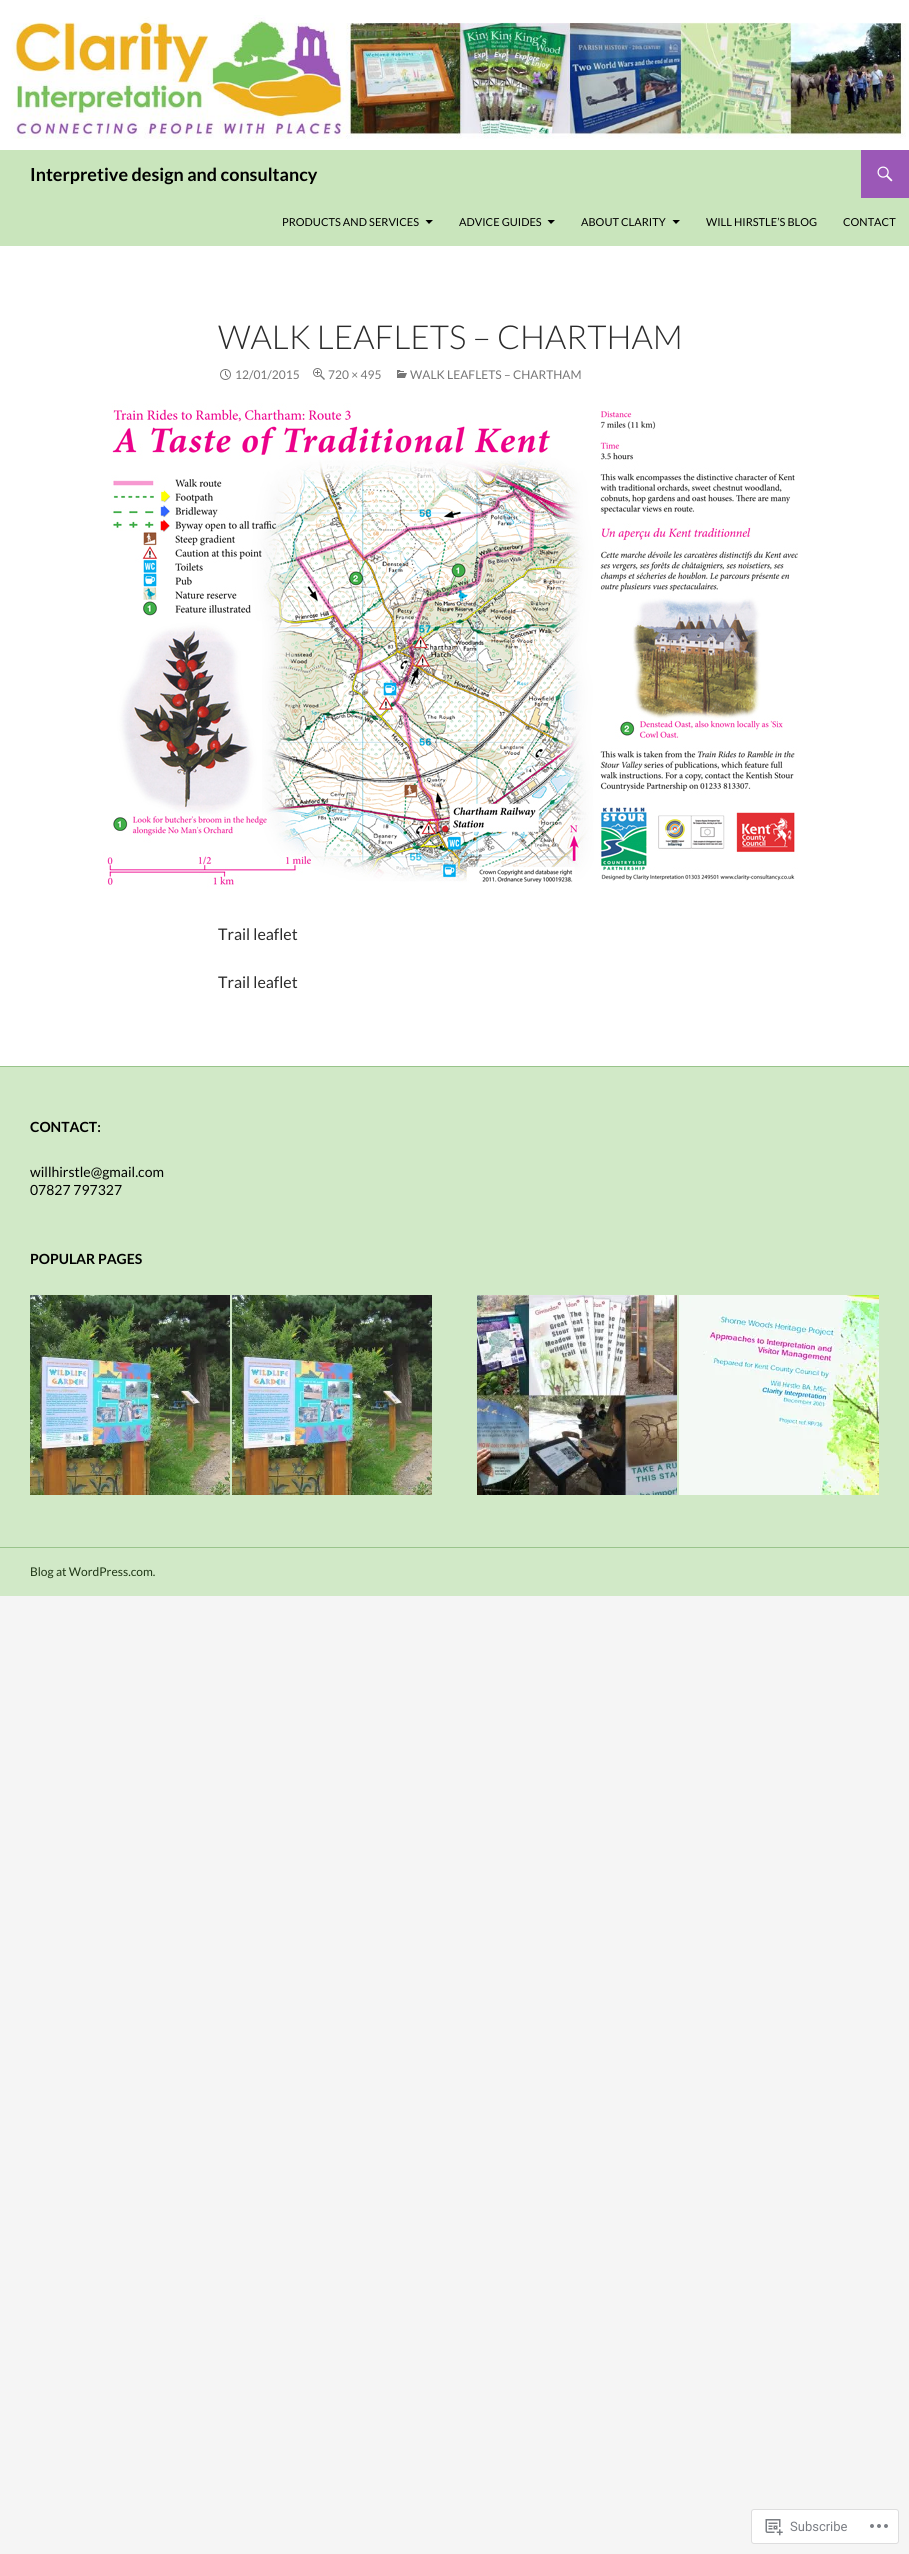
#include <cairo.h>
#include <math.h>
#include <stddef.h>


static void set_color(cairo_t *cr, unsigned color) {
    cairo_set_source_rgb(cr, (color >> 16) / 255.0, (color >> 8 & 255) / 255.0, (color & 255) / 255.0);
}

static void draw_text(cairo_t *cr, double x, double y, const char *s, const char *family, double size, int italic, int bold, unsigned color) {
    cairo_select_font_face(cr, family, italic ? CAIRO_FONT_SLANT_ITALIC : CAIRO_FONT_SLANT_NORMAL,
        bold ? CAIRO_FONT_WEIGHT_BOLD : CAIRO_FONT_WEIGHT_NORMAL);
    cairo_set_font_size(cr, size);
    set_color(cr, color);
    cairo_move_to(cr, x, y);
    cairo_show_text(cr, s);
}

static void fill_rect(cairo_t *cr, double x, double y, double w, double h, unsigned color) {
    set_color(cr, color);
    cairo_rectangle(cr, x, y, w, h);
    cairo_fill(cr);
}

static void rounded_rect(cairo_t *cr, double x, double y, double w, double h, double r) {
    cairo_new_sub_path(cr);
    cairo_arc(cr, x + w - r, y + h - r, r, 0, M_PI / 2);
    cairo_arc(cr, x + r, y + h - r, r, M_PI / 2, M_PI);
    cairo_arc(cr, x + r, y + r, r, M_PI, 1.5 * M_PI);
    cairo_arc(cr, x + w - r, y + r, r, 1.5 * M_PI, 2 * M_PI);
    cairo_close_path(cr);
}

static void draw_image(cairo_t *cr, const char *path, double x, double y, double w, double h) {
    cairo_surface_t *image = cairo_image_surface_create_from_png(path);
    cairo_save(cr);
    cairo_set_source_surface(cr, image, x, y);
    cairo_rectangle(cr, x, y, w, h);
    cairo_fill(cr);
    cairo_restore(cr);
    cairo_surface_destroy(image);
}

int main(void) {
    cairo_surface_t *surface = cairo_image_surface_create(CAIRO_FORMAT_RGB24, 909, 2554);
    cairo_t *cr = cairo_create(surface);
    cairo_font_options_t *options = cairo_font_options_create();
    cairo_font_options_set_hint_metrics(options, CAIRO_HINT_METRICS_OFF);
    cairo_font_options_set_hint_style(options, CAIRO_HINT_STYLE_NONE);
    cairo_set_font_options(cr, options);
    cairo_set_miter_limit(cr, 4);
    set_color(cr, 0xF5F5F5);
    cairo_paint(cr);
    fill_rect(cr, 0, 0, 909, 1066, 0xFFFFFF);
    draw_image(cr, "assets/img1.png", 11, 15, 898, 124);
    fill_rect(cr, 0, 150, 909, 96, 0xC9E5BC);
    draw_text(cr, 30, 181, "Interpretive design and consultancy", "Lato", 18, 0, 1, 0x000000);
    fill_rect(cr, 861, 150, 48, 48, 0x9B58B7);
    draw_image(cr, "assets/img2.png", 877, 166, 16, 16);
    draw_text(cr, 282, 226, "PRODUCTS AND SERVICES", "Lato", 11, 0, 0, 0x000000);
    cairo_new_path(cr);
    cairo_move_to(cr, 425.5, 220);
    cairo_line_to(cr, 433, 220);
    cairo_line_to(cr, 429, 224);
    cairo_close_path(cr);
    cairo_fill(cr);
    draw_text(cr, 459, 226, "ADVICE GUIDES", "Lato", 11, 0, 0, 0x000000);
    cairo_new_path(cr);
    cairo_move_to(cr, 547.5, 220);
    cairo_line_to(cr, 555, 220);
    cairo_line_to(cr, 551, 224);
    cairo_close_path(cr);
    cairo_fill(cr);
    draw_text(cr, 581, 226, "ABOUT CLARITY", "Lato", 11, 0, 0, 0x000000);
    cairo_new_path(cr);
    cairo_move_to(cr, 672.5, 220);
    cairo_line_to(cr, 680, 220);
    cairo_line_to(cr, 676, 224);
    cairo_close_path(cr);
    cairo_fill(cr);
    draw_text(cr, 706, 226, "WILL HIRSTLE’S BLOG", "Lato", 11, 0, 0, 0x000000);
    draw_text(cr, 843, 226, "CONTACT", "Lato", 11, 0, 0, 0x000000);
    draw_text(cr, 218, 349, "WALK LEAFLETS – CHARTHAM", "Lato Light", 33, 0, 0, 0x2B2B2B);
    draw_image(cr, "assets/img3.png", 220, 369, 11, 11);
    draw_text(cr, 235, 379, "12/01/2015", "Lato", 12, 0, 0, 0x767676);
    draw_image(cr, "assets/img4.png", 313, 368, 12, 12);
    draw_text(cr, 328, 379, "720 × 495", "Lato", 12, 0, 0, 0x767676);
    draw_image(cr, "assets/img5.png", 397, 370, 10, 8);
    draw_text(cr, 410, 379, "WALK LEAFLETS – CHARTHAM", "Lato", 12, 0, 0, 0x767676);
    draw_image(cr, "assets/img6.png", 103, 403, 695, 486);
    draw_text(cr, 218, 940, "Trail leaflet", "Lato", 16, 0, 0, 0x2B2B2B);
    draw_text(cr, 218, 988, "Trail leaflet", "Lato", 16, 0, 0, 0x2B2B2B);
    fill_rect(cr, 0, 1067, 909, 480, 0xD1E9C7);
    fill_rect(cr, 0, 1066, 909, 1, 0x99C48B);
    fill_rect(cr, 0, 1547, 909, 1, 0x99C48B);
    draw_text(cr, 30, 1132, "CONTACT:", "Lato", 14, 0, 1, 0x000000);
    draw_text(cr, 30, 1177, "willhirstle@gmail.com", "Lato", 14, 0, 0, 0x000000);
    draw_text(cr, 30, 1195, "07827 797327", "Lato", 14, 0, 0, 0x000000);
    draw_text(cr, 30, 1264, "POPULAR PAGES", "Lato", 14, 0, 1, 0x000000);
    draw_image(cr, "assets/img7.png", 30, 1295, 200, 200);
    draw_image(cr, "assets/img8.png", 232, 1295, 200, 200);
    draw_image(cr, "assets/img9.png", 477, 1295, 200, 200);
    draw_image(cr, "assets/img10.png", 679, 1295, 200, 200);
    fill_rect(cr, 0, 1548, 909, 48, 0xD1E9C7);
    draw_text(cr, 30, 1576, "Blog at WordPress.com.", "Lato", 12, 0, 0, 0x1F3615);
    set_color(cr, 0xFFFFFF);
    rounded_rect(cr, 751.5, 2509.5, 147, 34, 2.5);
    cairo_fill_preserve(cr);
    set_color(cr, 0xDDDDDE);
    cairo_set_line_width(cr, 1);
    cairo_stroke(cr);
    draw_image(cr, "assets/img11.png", 765, 2519, 18, 17);
    draw_text(cr, 790, 2531, "Subscribe", "Roboto", 13, 0, 0, 0x7B7E84);
    draw_image(cr, "assets/img12.png", 870, 2524, 18, 4);
    cairo_surface_write_to_png(surface, "output.png");
    cairo_font_options_destroy(options);
    cairo_destroy(cr);
    cairo_surface_destroy(surface);
    return 0;
}
